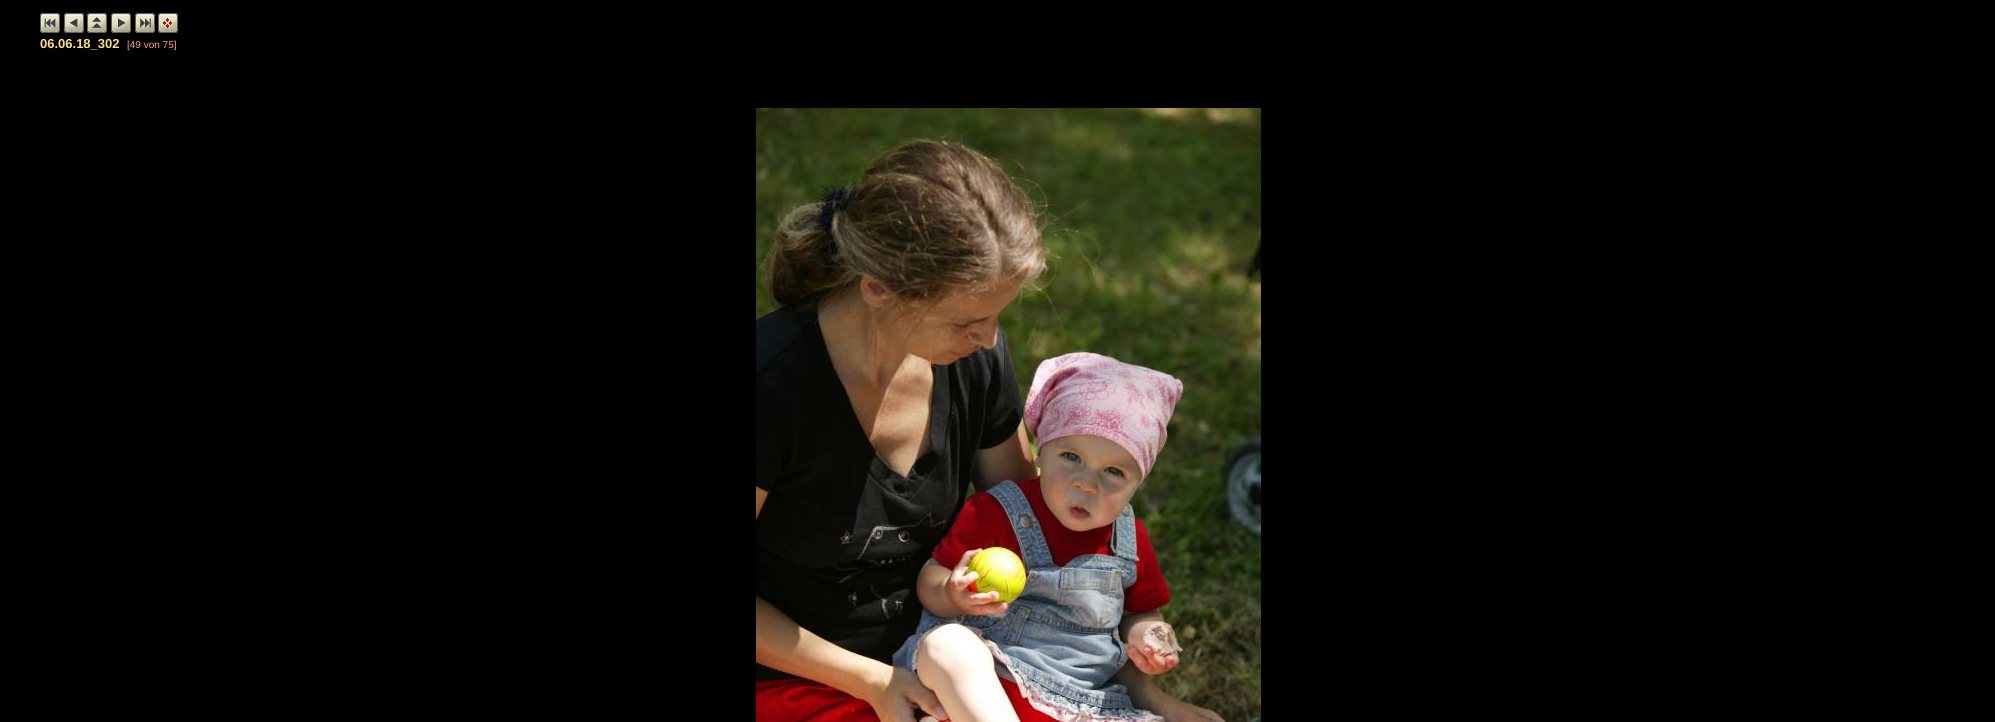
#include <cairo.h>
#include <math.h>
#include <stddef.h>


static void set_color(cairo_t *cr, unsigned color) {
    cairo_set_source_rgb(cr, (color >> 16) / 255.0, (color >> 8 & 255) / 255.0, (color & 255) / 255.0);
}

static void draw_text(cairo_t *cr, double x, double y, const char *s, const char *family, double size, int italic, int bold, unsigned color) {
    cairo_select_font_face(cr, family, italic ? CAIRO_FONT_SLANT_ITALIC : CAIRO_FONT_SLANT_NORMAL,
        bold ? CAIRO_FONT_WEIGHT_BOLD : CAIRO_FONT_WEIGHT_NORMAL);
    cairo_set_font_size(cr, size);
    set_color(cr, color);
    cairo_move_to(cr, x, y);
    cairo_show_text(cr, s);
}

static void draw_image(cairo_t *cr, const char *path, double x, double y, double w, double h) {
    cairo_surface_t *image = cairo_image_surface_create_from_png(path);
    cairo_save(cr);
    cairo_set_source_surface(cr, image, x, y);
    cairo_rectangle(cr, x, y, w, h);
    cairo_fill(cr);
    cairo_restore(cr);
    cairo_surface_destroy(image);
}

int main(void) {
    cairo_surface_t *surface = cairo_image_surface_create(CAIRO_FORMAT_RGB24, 1995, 722);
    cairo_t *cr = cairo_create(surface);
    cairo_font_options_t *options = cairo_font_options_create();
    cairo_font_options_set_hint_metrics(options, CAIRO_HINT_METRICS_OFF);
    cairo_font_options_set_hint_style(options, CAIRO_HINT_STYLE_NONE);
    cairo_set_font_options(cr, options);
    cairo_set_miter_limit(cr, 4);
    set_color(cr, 0x000000);
    cairo_paint(cr);
    draw_image(cr, "assets/img1.png", 40, 13, 20, 20);
    draw_image(cr, "assets/img2.png", 64, 13, 20, 20);
    draw_image(cr, "assets/img3.png", 87, 13, 20, 20);
    draw_image(cr, "assets/img4.png", 111, 13, 20, 20);
    draw_image(cr, "assets/img5.png", 135, 13, 20, 20);
    draw_image(cr, "assets/img6.png", 158, 13, 20, 20);
    draw_text(cr, 40, 48, "06.06.18_302", "Liberation Sans", 13, 0, 1, 0xFFE179);
    draw_text(cr, 127, 48, "[49 von 75]", "Liberation Sans", 10, 0, 0, 0xFFA07A);
    draw_image(cr, "assets/img7.png", 756, 108, 505, 614);
    cairo_surface_write_to_png(surface, "output.png");
    cairo_font_options_destroy(options);
    cairo_destroy(cr);
    cairo_surface_destroy(surface);
    return 0;
}
